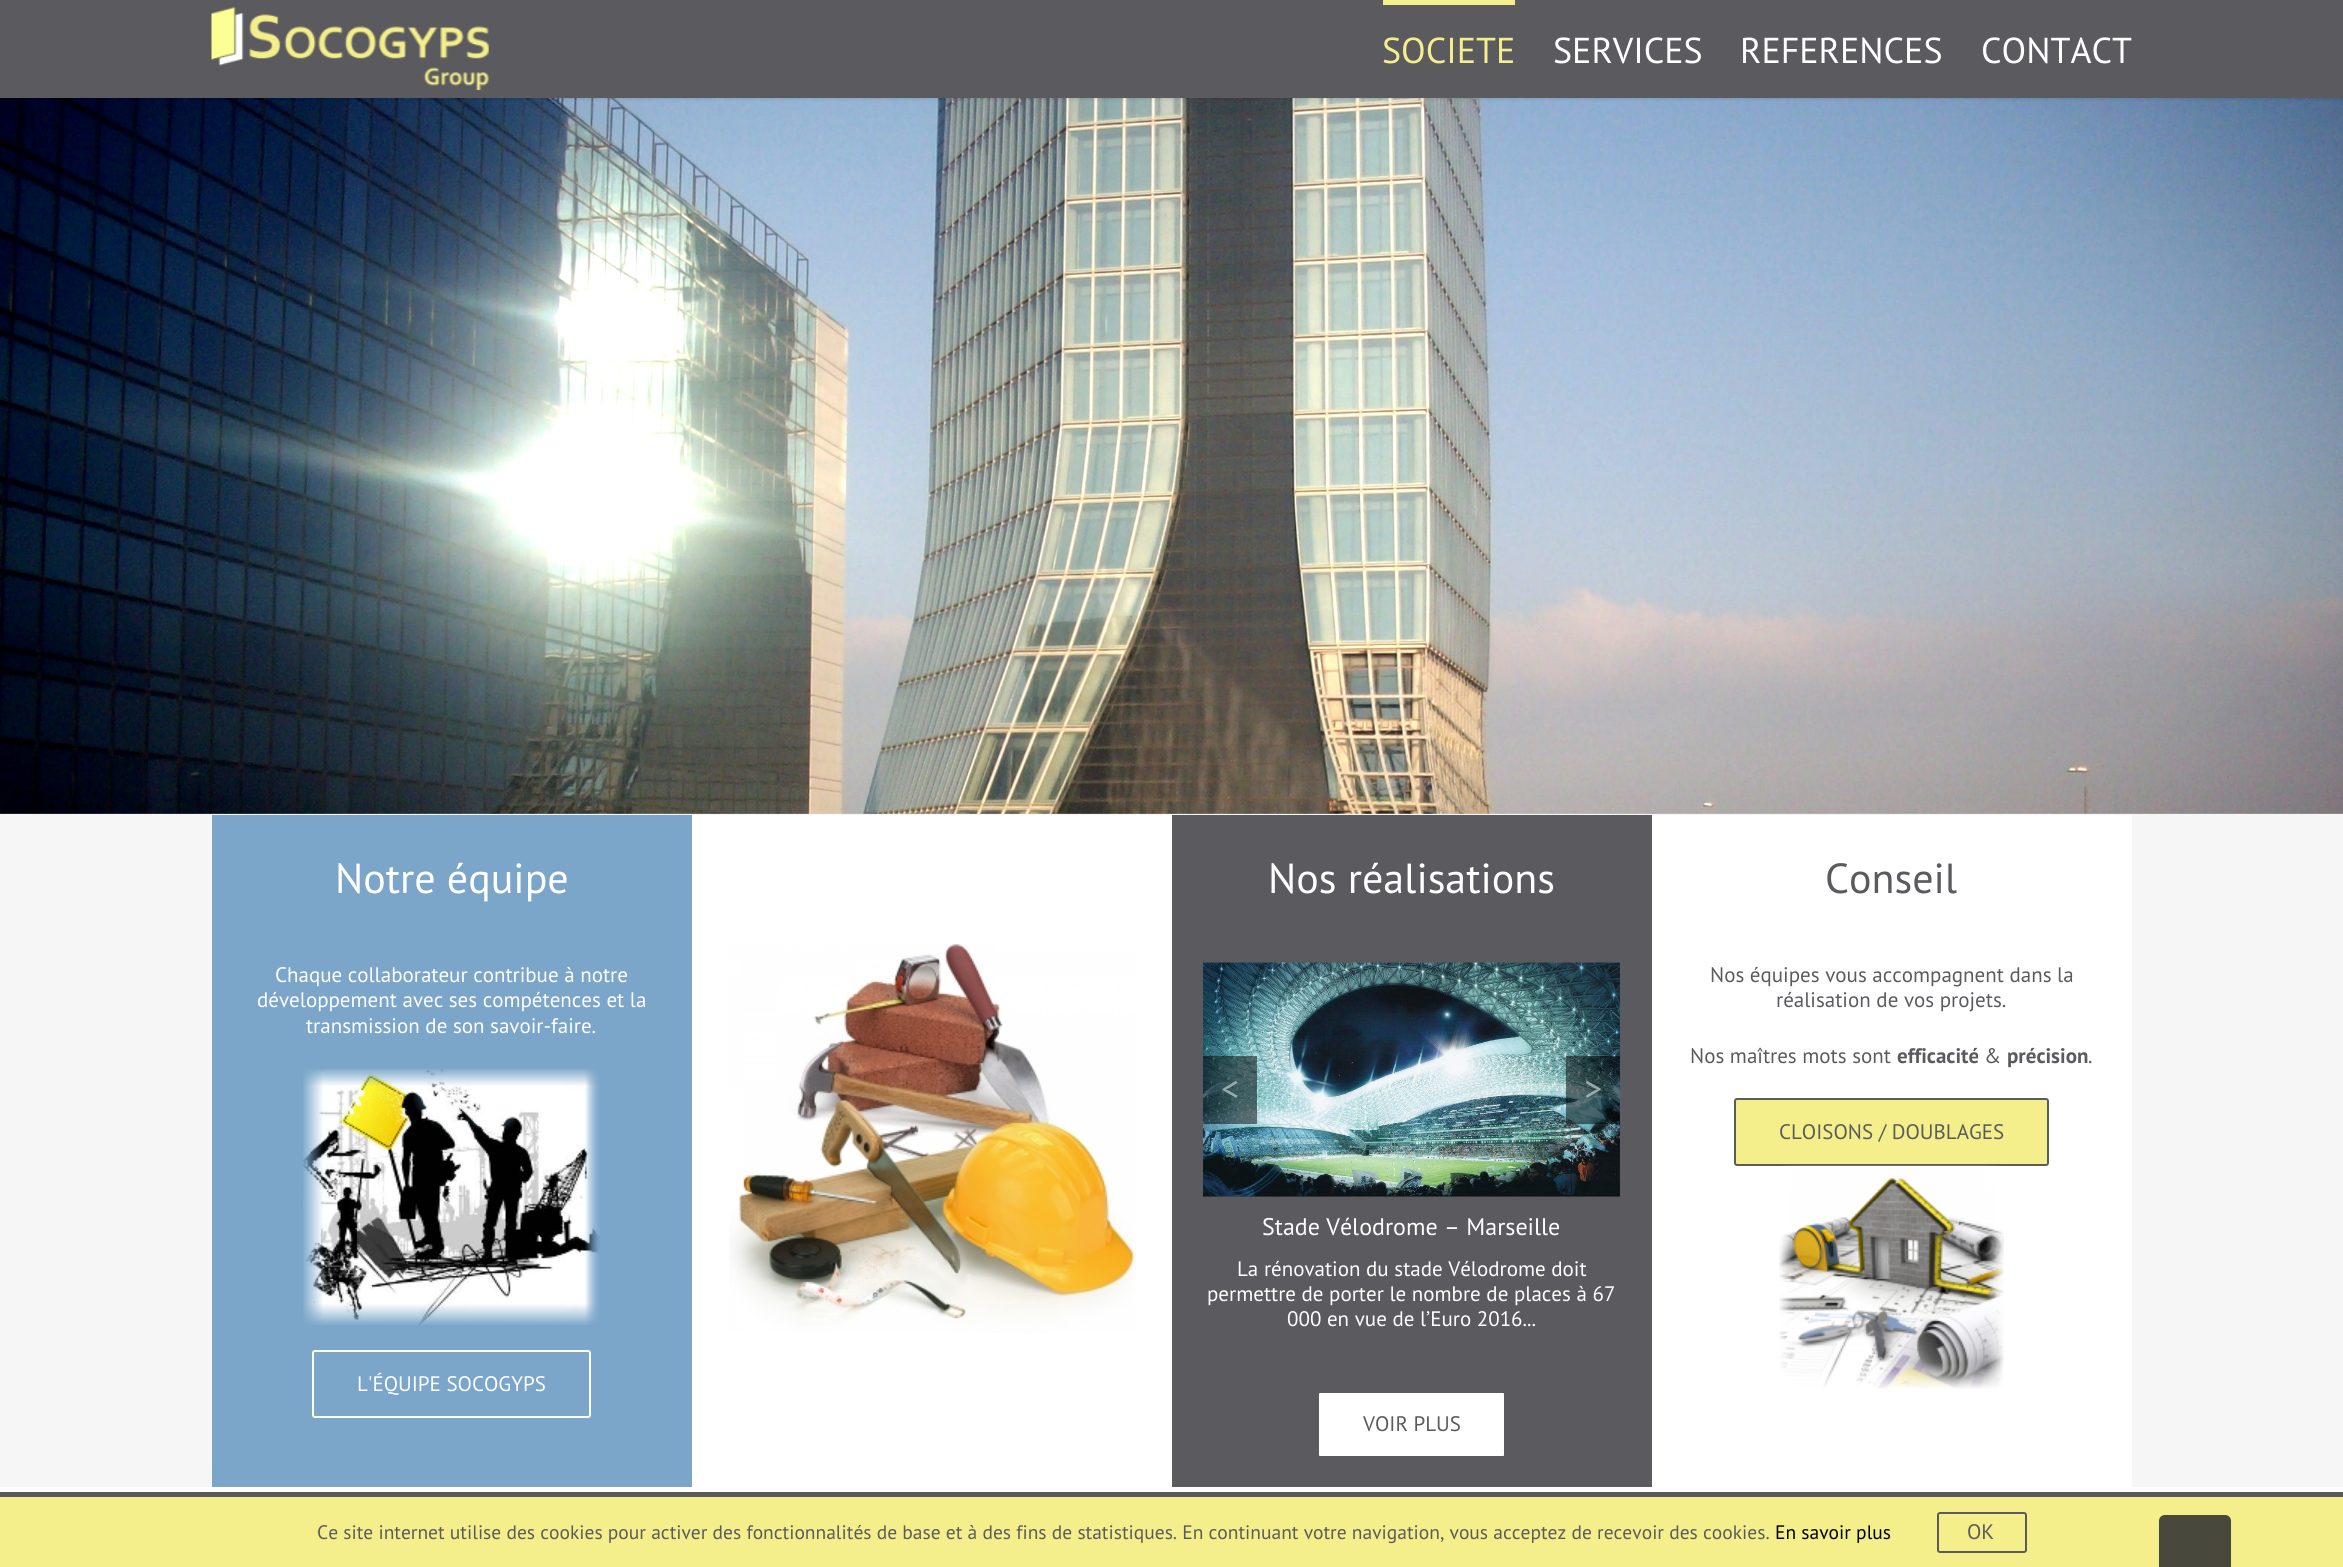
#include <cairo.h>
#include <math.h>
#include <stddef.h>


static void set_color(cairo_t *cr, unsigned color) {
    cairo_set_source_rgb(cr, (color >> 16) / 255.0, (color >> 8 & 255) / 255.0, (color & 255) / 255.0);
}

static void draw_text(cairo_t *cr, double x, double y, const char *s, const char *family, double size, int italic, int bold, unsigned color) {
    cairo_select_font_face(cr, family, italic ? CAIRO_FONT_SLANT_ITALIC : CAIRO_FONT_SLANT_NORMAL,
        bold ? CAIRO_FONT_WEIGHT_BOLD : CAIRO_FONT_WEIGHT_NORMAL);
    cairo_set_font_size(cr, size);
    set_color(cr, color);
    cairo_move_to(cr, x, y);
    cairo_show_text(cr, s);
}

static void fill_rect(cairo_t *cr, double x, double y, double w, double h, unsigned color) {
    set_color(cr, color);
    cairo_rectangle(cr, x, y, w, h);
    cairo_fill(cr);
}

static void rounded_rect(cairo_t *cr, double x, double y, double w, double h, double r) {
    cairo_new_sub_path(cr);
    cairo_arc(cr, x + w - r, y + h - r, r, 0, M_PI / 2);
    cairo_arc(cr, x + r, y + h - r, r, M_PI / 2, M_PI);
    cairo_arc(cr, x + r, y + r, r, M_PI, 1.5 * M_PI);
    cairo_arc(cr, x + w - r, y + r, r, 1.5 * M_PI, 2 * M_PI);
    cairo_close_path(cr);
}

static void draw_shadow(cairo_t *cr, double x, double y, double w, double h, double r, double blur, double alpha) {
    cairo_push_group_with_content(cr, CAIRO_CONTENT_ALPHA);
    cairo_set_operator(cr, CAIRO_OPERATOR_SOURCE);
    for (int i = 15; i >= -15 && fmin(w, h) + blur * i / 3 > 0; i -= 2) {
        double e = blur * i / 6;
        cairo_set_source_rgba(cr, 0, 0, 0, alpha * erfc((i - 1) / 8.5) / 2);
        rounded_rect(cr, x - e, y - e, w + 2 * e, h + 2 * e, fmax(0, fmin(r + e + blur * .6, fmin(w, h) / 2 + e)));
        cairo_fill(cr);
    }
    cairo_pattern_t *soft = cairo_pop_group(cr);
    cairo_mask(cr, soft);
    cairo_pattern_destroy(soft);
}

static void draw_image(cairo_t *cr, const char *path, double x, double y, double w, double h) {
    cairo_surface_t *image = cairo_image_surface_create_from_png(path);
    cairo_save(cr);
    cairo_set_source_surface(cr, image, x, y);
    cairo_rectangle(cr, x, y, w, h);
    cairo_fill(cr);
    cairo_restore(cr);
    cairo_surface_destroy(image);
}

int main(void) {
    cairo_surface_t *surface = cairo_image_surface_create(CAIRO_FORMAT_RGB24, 2343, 1567);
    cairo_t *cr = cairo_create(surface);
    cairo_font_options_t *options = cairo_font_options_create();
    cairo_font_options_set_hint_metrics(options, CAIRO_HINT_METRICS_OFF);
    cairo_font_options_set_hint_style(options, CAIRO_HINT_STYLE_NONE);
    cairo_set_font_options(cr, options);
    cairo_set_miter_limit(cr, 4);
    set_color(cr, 0xF6F6F6);
    cairo_paint(cr);
    draw_image(cr, "assets/img2.png", 0, 98, 2343, 716);
    set_color(cr, 0x000000);
    draw_shadow(cr, 0, 2, 2343, 97, 0, 2, 0.12);
    fill_rect(cr, 0, 0, 2343, 98, 0x5B5A5E);
    draw_image(cr, "assets/img1.png", 211, 7, 278, 83);
    fill_rect(cr, 1383, 0, 132, 5, 0xF4EF8B);
    draw_text(cr, 1382, 63, "SOCIETE", "PT Sans", 36, 0, 0, 0xF4EF8B);
    draw_text(cr, 1553, 63, "SERVICES", "PT Sans", 36, 0, 0, 0xFFFFFF);
    draw_text(cr, 1740, 63, "REFERENCES", "PT Sans", 36, 0, 0, 0xFFFFFF);
    draw_text(cr, 1981, 63, "CONTACT", "PT Sans", 36, 0, 0, 0xFFFFFF);
    fill_rect(cr, 212, 815, 480, 672, 0x7BA6C9);
    draw_text(cr, 335, 893, "Notre équipe", "PT Sans", 42, 0, 0, 0xFFFFFF);
    draw_text(cr, 275, 982, "Chaque collaborateur contribue à notre", "PT Sans", 21, 0, 0, 0xFFFFFF);
    draw_text(cr, 257, 1007, "développement avec ses compétences et la", "PT Sans", 21, 0, 0, 0xFFFFFF);
    draw_text(cr, 306, 1033, "transmission de son savoir-faire.", "PT Sans", 21, 0, 0, 0xFFFFFF);
    draw_image(cr, "assets/img3.png", 303, 1068, 297, 257);
    rounded_rect(cr, 313, 1351, 277, 66, 2);
    cairo_stroke(cr);
    draw_text(cr, 357, 1391, "L'ÉQUIPE SOCOGYPS", "PT Sans", 21, 0, 0, 0xFFFFFF);
    fill_rect(cr, 692, 815, 480, 672, 0xFFFFFF);
    draw_image(cr, "assets/img4.png", 729, 943, 407, 390);
    fill_rect(cr, 1172, 815, 480, 672, 0x5B5A5E);
    draw_text(cr, 1268, 893, "Nos réalisations", "PT Sans", 42, 0, 0, 0xFFFFFF);
    draw_image(cr, "assets/img5.png", 1203, 962, 417, 235);
    cairo_set_source_rgba(cr, 0, 0, 0, 0.5);
    cairo_rectangle(cr, 1203, 1056, 54, 68);
    cairo_fill(cr);
    draw_text(cr, 1221, 1101, "<", "PT Sans", 36, 0, 0, 0x9AABAD);
    cairo_set_source_rgba(cr, 0, 0, 0, 0.5);
    cairo_rectangle(cr, 1566, 1056, 54, 68);
    cairo_fill(cr);
    draw_text(cr, 1584, 1101, ">", "PT Sans", 36, 0, 0, 0x9AABAD);
    draw_text(cr, 1262, 1235, "Stade Vélodrome – Marseille", "PT Sans", 24, 0, 0, 0xFFFFFF);
    draw_text(cr, 1237, 1276, "La rénovation du stade Vélodrome doit", "PT Sans", 21, 0, 0, 0xFFFFFF);
    draw_text(cr, 1207, 1301, "permettre de porter le nombre de places à 67", "PT Sans", 21, 0, 0, 0xFFFFFF);
    draw_text(cr, 1287, 1326, "000 en vue de l’Euro 2016...", "PT Sans", 21, 0, 0, 0xFFFFFF);
    rounded_rect(cr, 1318, 1392, 187, 65, 2);
    cairo_fill_preserve(cr);
    set_color(cr, 0x5B5A5E);
    cairo_stroke(cr);
    draw_text(cr, 1363, 1431, "VOIR PLUS", "PT Sans", 21, 0, 0, 0x5B5A5E);
    fill_rect(cr, 1652, 815, 480, 672, 0xFFFFFF);
    draw_text(cr, 1825, 893, "Conseil", "PT Sans", 42, 0, 0, 0x5B5A5E);
    draw_text(cr, 1710, 982, "Nos équipes vous accompagnent dans la", "PT Sans", 21, 0, 0, 0x5B5A5E);
    draw_text(cr, 1776, 1007, "réalisation de vos projets.", "PT Sans", 21, 0, 0, 0x5B5A5E);
    draw_text(cr, 1690, 1063, "Nos maîtres mots sont", "PT Sans", 21, 0, 0, 0x5B5A5E);
    draw_text(cr, 1897, 1063, "efficacité", "PT Sans", 21, 0, 1, 0x5B5A5E);
    draw_text(cr, 1984, 1063, "&", "PT Sans", 21, 0, 0, 0x5B5A5E);
    draw_text(cr, 2007, 1063, "précision", "PT Sans", 21, 0, 1, 0x5B5A5E);
    draw_text(cr, 2088, 1063, ".", "PT Sans", 21, 0, 0, 0x5B5A5E);
    set_color(cr, 0xF4EF8B);
    rounded_rect(cr, 1735, 1099, 313, 66, 2);
    cairo_fill_preserve(cr);
    set_color(cr, 0x5B5A5E);
    cairo_stroke(cr);
    draw_text(cr, 1779, 1139, "CLOISONS / DOUBLAGES", "PT Sans", 21, 0, 0, 0x5B5A5E);
    draw_image(cr, "assets/img6.png", 1779, 1165, 225, 224);
    fill_rect(cr, 0, 1492, 2343, 5, 0x5B5A5E);
    fill_rect(cr, 0, 1487, 2343, 5, 0xFFFFFF);
    fill_rect(cr, 0, 1497, 2343, 70, 0xF4EF8B);
    draw_text(cr, 317, 1539, "Ce site internet utilise des cookies pour activer des fonctionnalités de base et à des fins de statistiques. En continuant votre navigation, vous acceptez de recevoir des cookies.", "PT Sans", 19.5, 0, 0, 0x5B5A5E);
    draw_text(cr, 1775, 1539, "En savoir plus", "PT Sans", 19.5, 0, 0, 0x000000);
    rounded_rect(cr, 1938, 1513, 88, 39, 2);
    set_color(cr, 0x5B5A5E);
    cairo_stroke(cr);
    draw_text(cr, 1967, 1539, "OK", "PT Sans", 21, 0, 0, 0x5B5A5E);
    set_color(cr, 0x48483D);
    cairo_new_path(cr);
    cairo_move_to(cr, 2165, 1515);
    cairo_line_to(cr, 2225, 1515);
    cairo_curve_to(cr, 2228.5, 1515, 2231, 1517.5, 2231, 1521);
    cairo_line_to(cr, 2231, 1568);
    cairo_line_to(cr, 2159, 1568);
    cairo_line_to(cr, 2159, 1521);
    cairo_curve_to(cr, 2159, 1517.5, 2161.5, 1515, 2165, 1515);
    cairo_close_path(cr);
    cairo_fill(cr);
    cairo_surface_write_to_png(surface, "output.png");
    cairo_font_options_destroy(options);
    cairo_destroy(cr);
    cairo_surface_destroy(surface);
    return 0;
}
